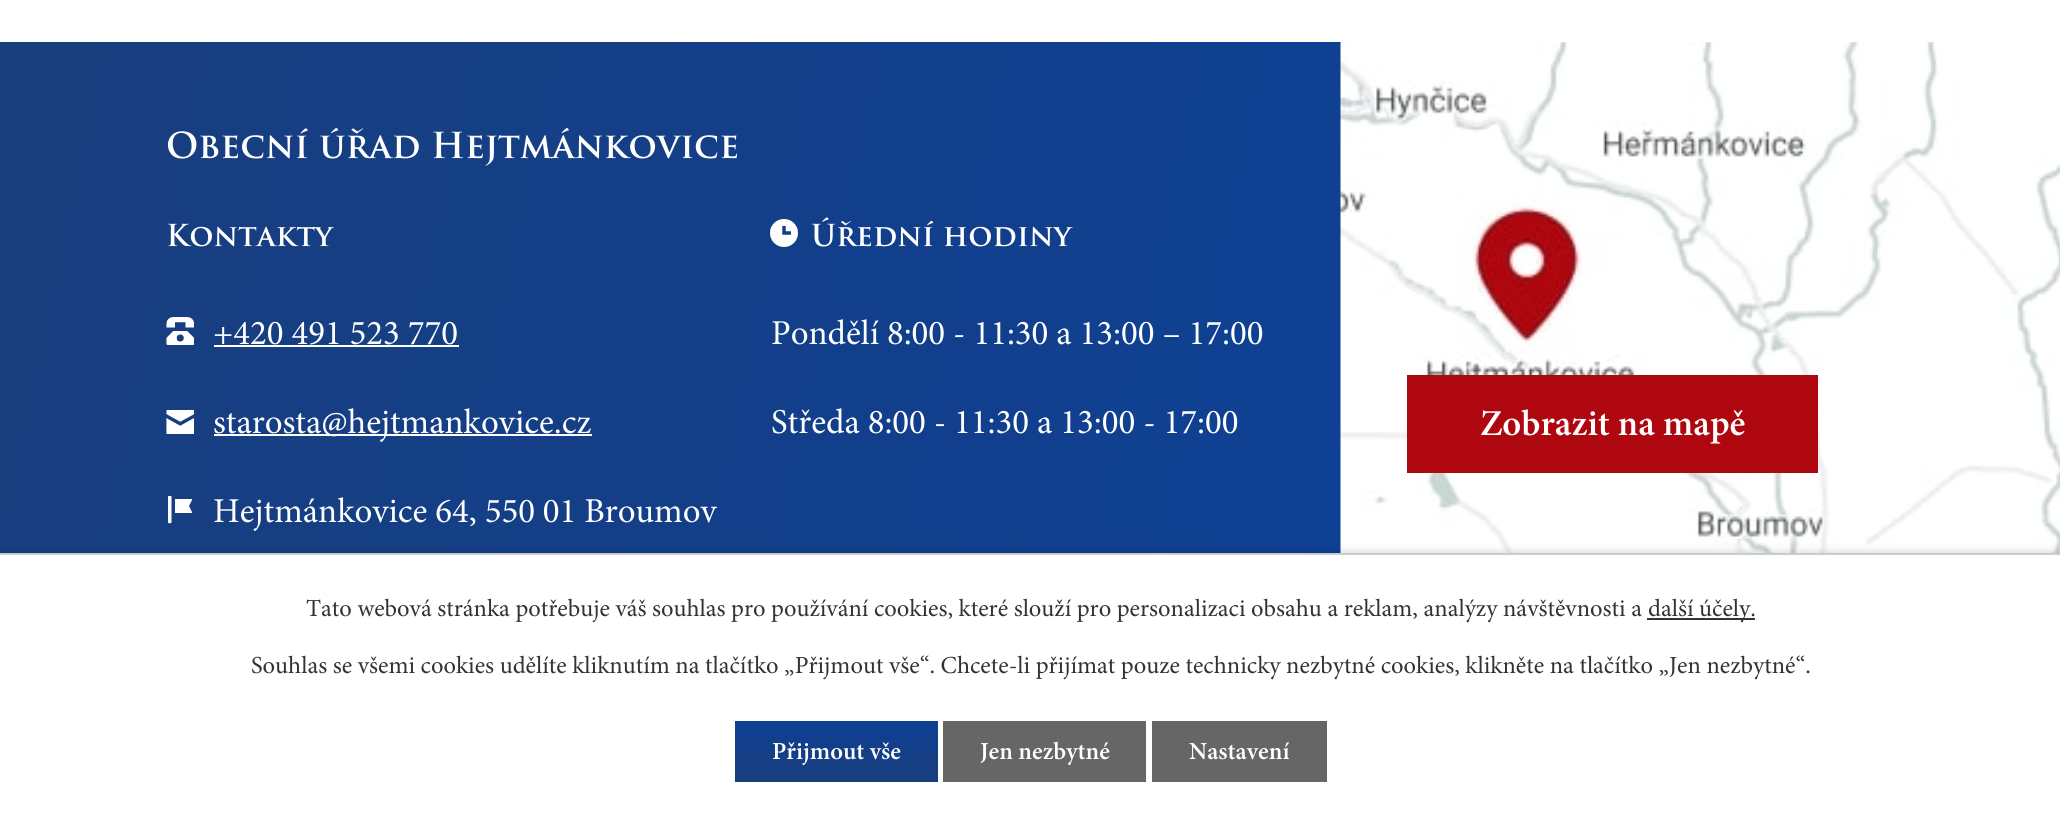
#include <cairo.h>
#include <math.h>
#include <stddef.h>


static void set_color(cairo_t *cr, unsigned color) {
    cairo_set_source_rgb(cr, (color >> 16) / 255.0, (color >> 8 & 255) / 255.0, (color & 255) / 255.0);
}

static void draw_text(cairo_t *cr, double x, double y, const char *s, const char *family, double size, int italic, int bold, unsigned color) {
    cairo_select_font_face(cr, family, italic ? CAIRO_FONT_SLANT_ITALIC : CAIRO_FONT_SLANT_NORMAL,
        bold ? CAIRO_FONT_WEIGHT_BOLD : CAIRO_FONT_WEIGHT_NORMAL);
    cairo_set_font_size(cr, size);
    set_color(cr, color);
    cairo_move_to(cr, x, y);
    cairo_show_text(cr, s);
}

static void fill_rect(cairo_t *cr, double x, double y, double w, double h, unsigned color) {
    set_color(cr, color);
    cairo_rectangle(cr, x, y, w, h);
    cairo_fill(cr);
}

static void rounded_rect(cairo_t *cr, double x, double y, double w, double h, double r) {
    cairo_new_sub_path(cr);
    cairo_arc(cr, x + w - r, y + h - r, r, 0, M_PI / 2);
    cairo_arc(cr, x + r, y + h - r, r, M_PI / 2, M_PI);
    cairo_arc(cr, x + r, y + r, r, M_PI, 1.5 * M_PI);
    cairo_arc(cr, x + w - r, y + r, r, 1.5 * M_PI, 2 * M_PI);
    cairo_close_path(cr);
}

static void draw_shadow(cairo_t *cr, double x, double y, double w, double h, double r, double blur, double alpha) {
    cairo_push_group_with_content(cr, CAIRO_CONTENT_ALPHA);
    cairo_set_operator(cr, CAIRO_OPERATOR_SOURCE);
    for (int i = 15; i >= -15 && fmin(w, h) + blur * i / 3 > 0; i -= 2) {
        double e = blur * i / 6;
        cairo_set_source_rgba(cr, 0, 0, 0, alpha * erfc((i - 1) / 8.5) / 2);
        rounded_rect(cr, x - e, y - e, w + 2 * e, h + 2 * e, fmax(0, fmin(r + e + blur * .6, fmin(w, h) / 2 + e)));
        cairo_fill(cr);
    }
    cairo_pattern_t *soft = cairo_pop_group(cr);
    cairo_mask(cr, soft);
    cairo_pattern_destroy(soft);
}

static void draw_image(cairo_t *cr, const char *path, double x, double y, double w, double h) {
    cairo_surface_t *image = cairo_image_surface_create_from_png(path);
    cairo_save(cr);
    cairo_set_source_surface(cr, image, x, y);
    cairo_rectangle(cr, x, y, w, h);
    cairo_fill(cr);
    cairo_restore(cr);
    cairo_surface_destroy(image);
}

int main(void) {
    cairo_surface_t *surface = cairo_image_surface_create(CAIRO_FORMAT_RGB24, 2060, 815);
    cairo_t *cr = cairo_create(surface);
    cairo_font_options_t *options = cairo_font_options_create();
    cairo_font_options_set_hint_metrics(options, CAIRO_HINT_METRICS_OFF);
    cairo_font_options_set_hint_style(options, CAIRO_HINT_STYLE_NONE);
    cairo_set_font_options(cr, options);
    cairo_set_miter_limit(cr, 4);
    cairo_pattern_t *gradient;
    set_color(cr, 0xFFFFFF);
    cairo_paint(cr);
    gradient = cairo_pattern_create_linear(1377, 514, -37, 214);
    cairo_pattern_add_color_stop_rgba(gradient, 0, 0.055, 0.251, 0.58, 1);
    cairo_pattern_add_color_stop_rgba(gradient, 1, 0.098, 0.243, 0.49, 1);
    cairo_set_source(cr, gradient);
    cairo_pattern_destroy(gradient);
    cairo_rectangle(cr, 0, 42, 1341, 511);
    cairo_fill(cr);
    draw_text(cr, 166, 158, "Obecní úřad Hejtmánkovice", "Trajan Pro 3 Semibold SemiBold", 34.9, 0, 0, 0xFFFFFF);
    draw_text(cr, 166, 246, "Kontakty", "Trajan Pro 3 Semibold SemiBold", 29.5, 0, 0, 0xFFFFFF);
    draw_image(cr, "assets/img1.png", 166, 317, 28, 28);
    draw_text(cr, 213, 344, "+420 491 523 770", "Minion", 34.9, 0, 0, 0xFFFFFF);
    fill_rect(cr, 214, 345, 245, 2, 0xFFFFFF);
    draw_image(cr, "assets/img2.png", 166, 410, 28, 24);
    fill_rect(cr, 214, 434, 378, 2, 0xFFFFFF);
    draw_text(cr, 213, 433, "starosta@hejtmankovice.cz", "Minion", 34.9, 0, 0, 0xFFFFFF);
    draw_image(cr, "assets/img3.png", 168, 496, 25, 28);
    draw_text(cr, 213, 522, "Hejtmánkovice 64, 550 01 Broumov", "Minion", 34.9, 0, 0, 0xFFFFFF);
    draw_image(cr, "assets/img4.png", 770, 219, 28, 28);
    draw_text(cr, 811, 246, "Úřední hodiny", "Trajan Pro 3 Semibold SemiBold", 29.5, 0, 0, 0xFFFFFF);
    draw_text(cr, 771, 344, "Pondělí 8:00 - 11:30 a 13:00 – 17:00", "Minion", 34.9, 0, 0, 0xFFFFFF);
    draw_text(cr, 771, 433, "Středa 8:00 - 11:30 a 13:00 - 17:00", "Minion", 34.9, 0, 0, 0xFFFFFF);
    draw_image(cr, "assets/img5.png", 1340, 42, 720, 511);
    fill_rect(cr, 1407, 375, 411, 98, 0xAE0710);
    draw_text(cr, 1480, 435, "Zobrazit na mapě", "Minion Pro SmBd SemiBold", 36.5, 0, 0, 0xFFFFFF);
    set_color(cr, 0x000000);
    draw_shadow(cr, 0, 553, 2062, 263, 0, 4.5, 0.2);
    fill_rect(cr, 0, 555, 2060, 260, 0xFFFFFF);
    fill_rect(cr, 0, 553, 2060, 2, 0xCCCCCC);
    draw_text(cr, 306, 616, "Tato webová stránka potřebuje váš souhlas pro používání cookies, které slouží pro personalizaci obsahu a reklam, analýzy návštěvnosti a", "Minion", 24.5, 0, 0, 0x333333);
    fill_rect(cr, 1647, 618, 108, 2, 0x333333);
    draw_text(cr, 1648, 616, "další účely.", "Minion", 24.5, 0, 0, 0x333333);
    draw_text(cr, 251, 673, "Souhlas se všemi cookies udělíte kliknutím na tlačítko „Přijmout vše“. Chcete-li přijímat pouze technicky nezbytné cookies, klikněte na tlačítko „Jen nezbytné“.", "Minion", 24.5, 0, 0, 0x333333);
    gradient = cairo_pattern_create_linear(837, 721, 837, 782);
    cairo_pattern_add_color_stop_rgba(gradient, 0, 0.055, 0.251, 0.58, 1);
    cairo_pattern_add_color_stop_rgba(gradient, 1, 0.098, 0.243, 0.49, 1);
    cairo_set_source(cr, gradient);
    cairo_pattern_destroy(gradient);
    cairo_rectangle(cr, 735, 721, 203, 61);
    cairo_fill(cr);
    draw_text(cr, 772, 759, "Přijmout vše", "Minion Pro SmBd SemiBold", 24.5, 0, 0, 0xFFFFFF);
    fill_rect(cr, 943, 721, 203, 61, 0x666666);
    draw_text(cr, 980, 759, "Jen nezbytné", "Minion Pro SmBd SemiBold", 24.5, 0, 0, 0xFFFFFF);
    fill_rect(cr, 1152, 721, 175, 61, 0x666666);
    draw_text(cr, 1189, 759, "Nastavení", "Minion Pro SmBd SemiBold", 24.5, 0, 0, 0xFFFFFF);
    cairo_surface_write_to_png(surface, "output.png");
    cairo_font_options_destroy(options);
    cairo_destroy(cr);
    cairo_surface_destroy(surface);
    return 0;
}
